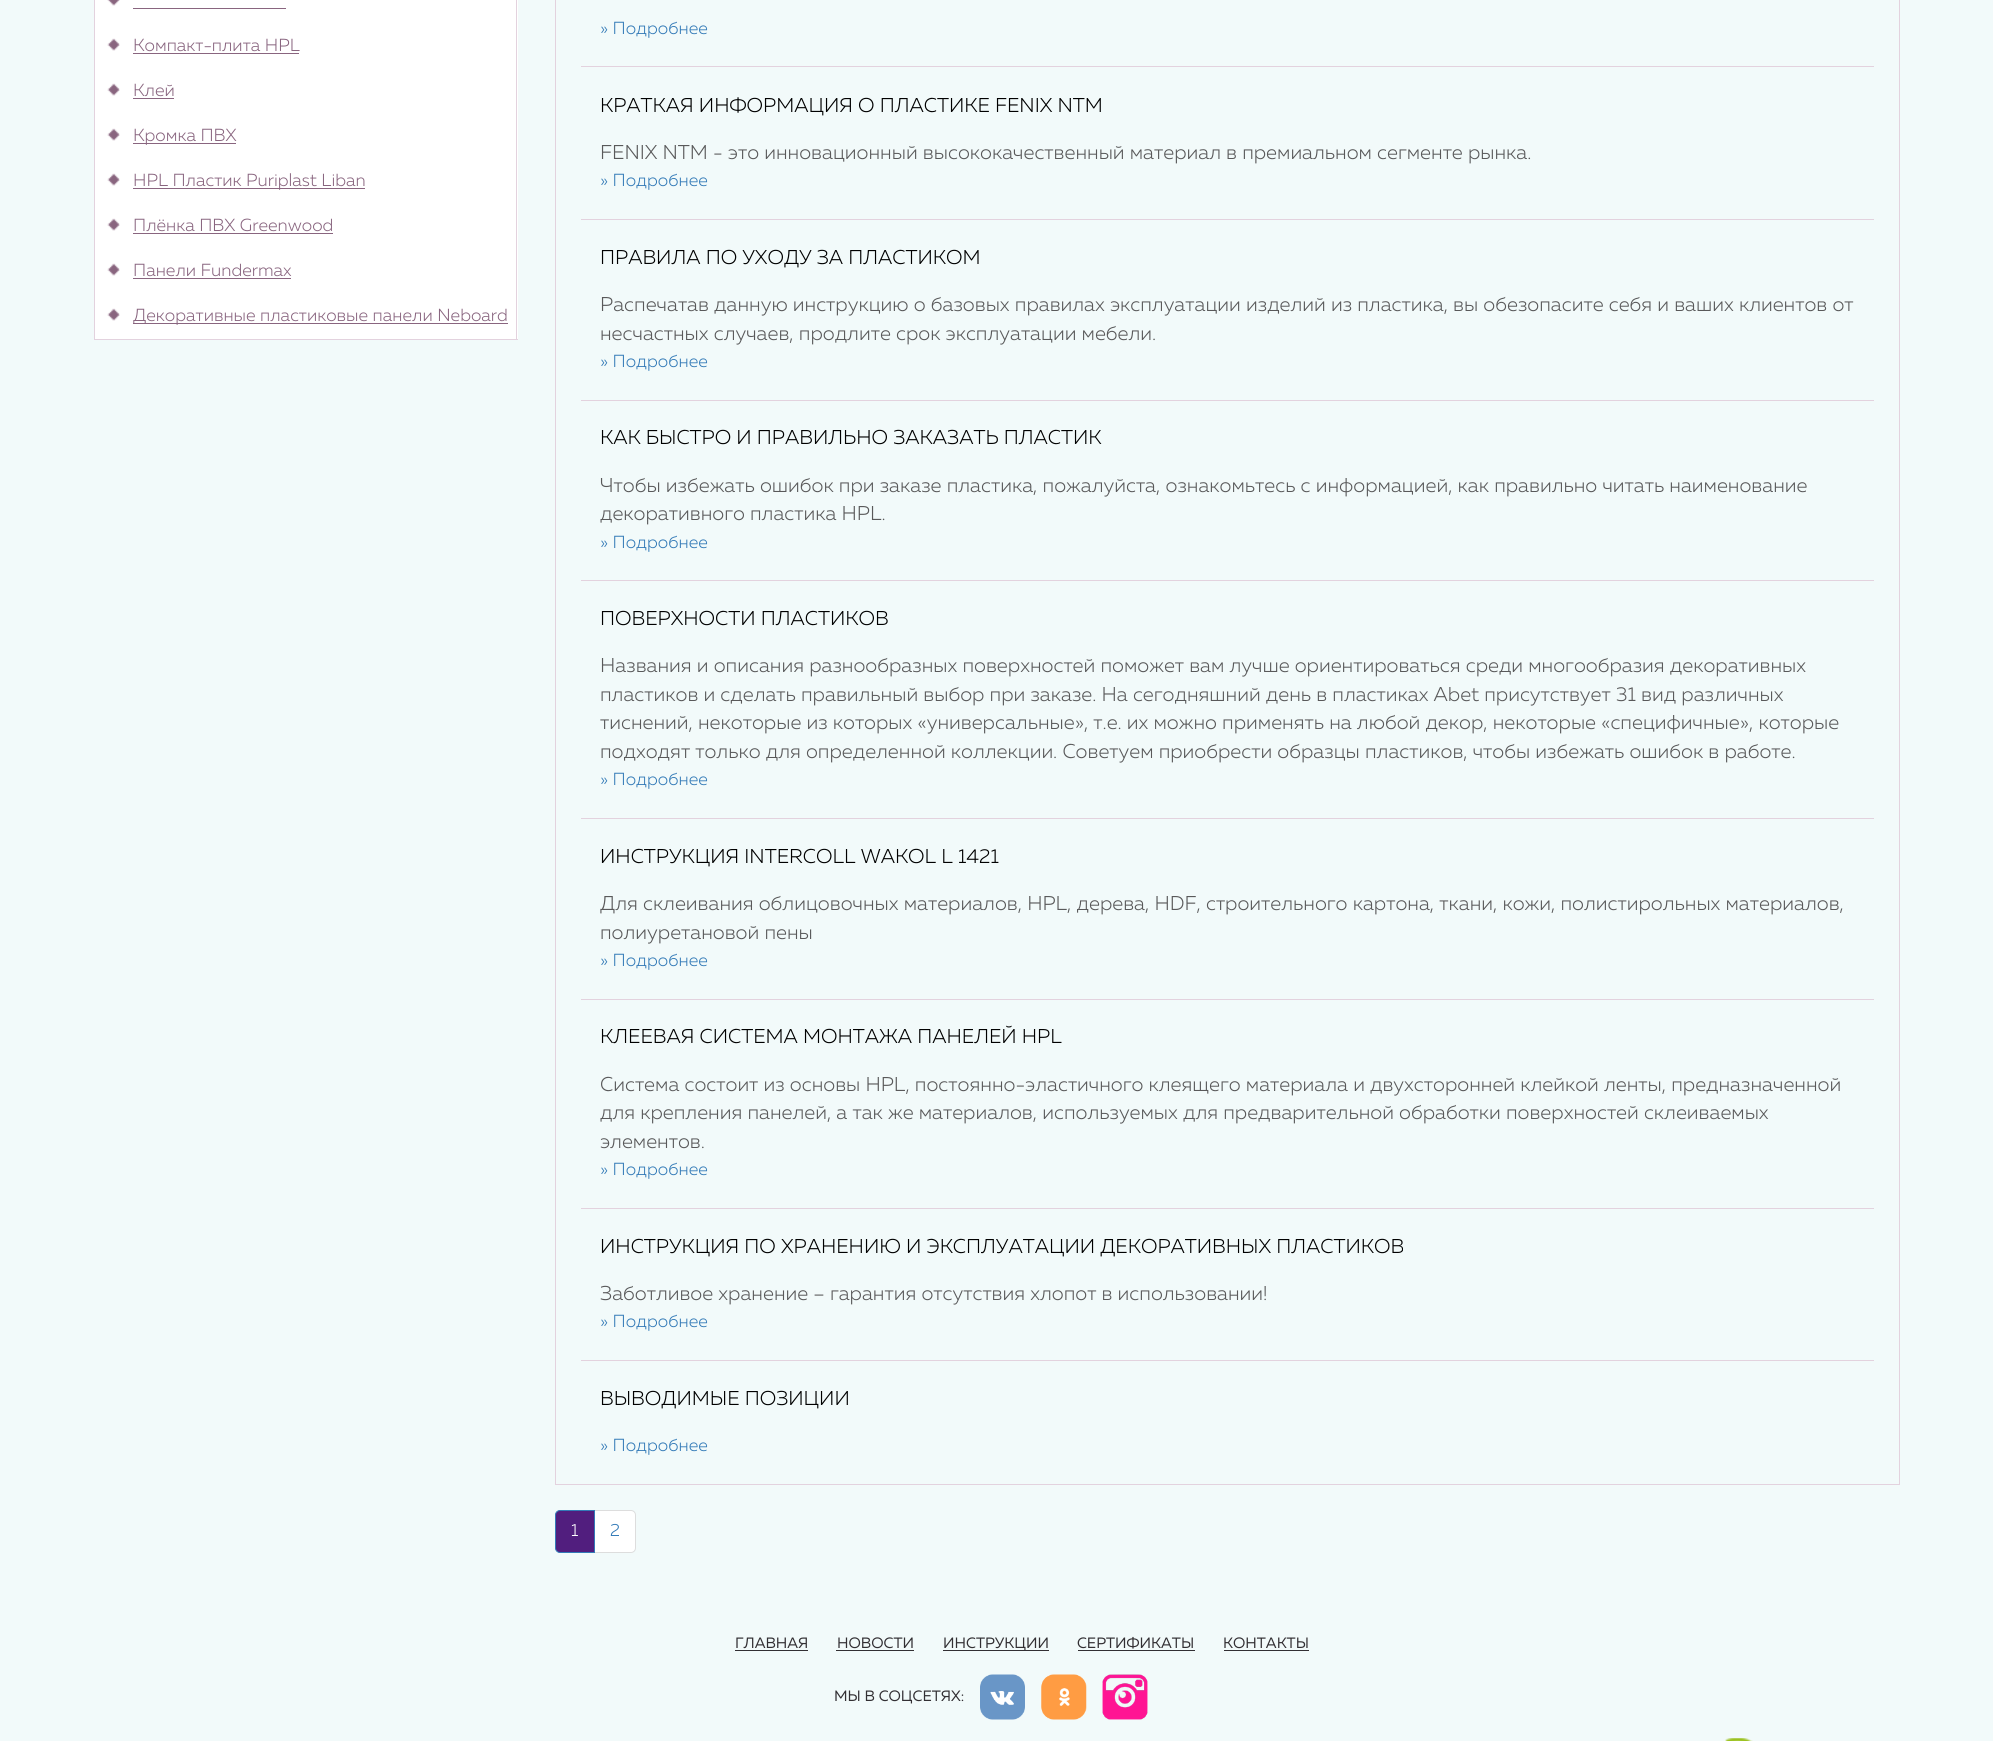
#include <cairo.h>
#include <math.h>
#include <stddef.h>


static void set_color(cairo_t *cr, unsigned color) {
    cairo_set_source_rgb(cr, (color >> 16) / 255.0, (color >> 8 & 255) / 255.0, (color & 255) / 255.0);
}

static void draw_text(cairo_t *cr, double x, double y, const char *s, const char *family, double size, int italic, int bold, unsigned color) {
    cairo_select_font_face(cr, family, italic ? CAIRO_FONT_SLANT_ITALIC : CAIRO_FONT_SLANT_NORMAL,
        bold ? CAIRO_FONT_WEIGHT_BOLD : CAIRO_FONT_WEIGHT_NORMAL);
    cairo_set_font_size(cr, size);
    set_color(cr, color);
    cairo_move_to(cr, x, y);
    cairo_show_text(cr, s);
}

static void fill_rect(cairo_t *cr, double x, double y, double w, double h, unsigned color) {
    set_color(cr, color);
    cairo_rectangle(cr, x, y, w, h);
    cairo_fill(cr);
}

static void draw_image(cairo_t *cr, const char *path, double x, double y, double w, double h) {
    cairo_surface_t *image = cairo_image_surface_create_from_png(path);
    cairo_save(cr);
    cairo_set_source_surface(cr, image, x, y);
    cairo_rectangle(cr, x, y, w, h);
    cairo_fill(cr);
    cairo_restore(cr);
    cairo_surface_destroy(image);
}

int main(void) {
    cairo_surface_t *surface = cairo_image_surface_create(CAIRO_FORMAT_RGB24, 1993, 1741);
    cairo_t *cr = cairo_create(surface);
    cairo_font_options_t *options = cairo_font_options_create();
    cairo_font_options_set_hint_metrics(options, CAIRO_HINT_METRICS_OFF);
    cairo_font_options_set_hint_style(options, CAIRO_HINT_STYLE_NONE);
    cairo_set_font_options(cr, options);
    cairo_set_miter_limit(cr, 4);
    set_color(cr, 0xF2FAFA);
    cairo_paint(cr);
    fill_rect(cr, 95, 0, 423, 339, 0xFFFFFF);
    fill_rect(cr, 516, 0, 1, 340, 0xE3D2DE);
    fill_rect(cr, 94, 339, 424, 1, 0xE3D2DE);
    fill_rect(cr, 94, 0, 1, 340, 0xE3D2DE);
    draw_image(cr, "assets/img1.png", 107, 0, 13, 6);
    fill_rect(cr, 133, 8, 153, 1, 0x89657F);
    draw_image(cr, "assets/img2.png", 107, 38, 13, 13);
    draw_text(cr, 133, 51, "Компакт-плита HPL", "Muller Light", 17.5, 0, 0, 0x89657F);
    fill_rect(cr, 133, 53, 166, 1, 0x89657F);
    draw_image(cr, "assets/img2.png", 107, 83, 13, 13);
    draw_text(cr, 133, 96, "Клей", "Muller Light", 17.5, 0, 0, 0x89657F);
    fill_rect(cr, 133, 98, 41, 1, 0x89657F);
    draw_image(cr, "assets/img2.png", 107, 128, 13, 13);
    fill_rect(cr, 133, 143, 103, 1, 0x89657F);
    draw_text(cr, 133, 141, "Кромка ПВХ", "Muller Light", 17.5, 0, 0, 0x89657F);
    draw_image(cr, "assets/img2.png", 107, 173, 13, 13);
    fill_rect(cr, 133, 188, 232, 1, 0x89657F);
    draw_text(cr, 133, 186, "HPL Пластик Puriplast Liban", "Muller Light", 17.5, 0, 0, 0x89657F);
    draw_image(cr, "assets/img2.png", 107, 218, 13, 13);
    draw_text(cr, 133, 231, "Плёнка ПВХ Greenwood", "Muller Light", 17.5, 0, 0, 0x89657F);
    fill_rect(cr, 133, 233, 200, 1, 0x89657F);
    draw_image(cr, "assets/img2.png", 107, 263, 13, 13);
    draw_text(cr, 133, 276, "Панели Fundermax", "Muller Light", 17.5, 0, 0, 0x89657F);
    fill_rect(cr, 133, 278, 158, 1, 0x89657F);
    draw_image(cr, "assets/img2.png", 107, 308, 13, 13);
    fill_rect(cr, 133, 323, 375, 1, 0x89657F);
    draw_text(cr, 133, 321, "Декоративные пластиковые панели Neboard", "Muller Light", 17.5, 0, 0, 0x89657F);
    cairo_rectangle(cr, 555.5, -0.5, 1344, 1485);
    set_color(cr, 0xE3D2DE);
    cairo_set_line_width(cr, 1);
    cairo_stroke(cr);
    fill_rect(cr, 581, 66, 1293, 1, 0xE3D2DE);
    draw_text(cr, 600, 34, "» Подробнее", "Muller Light", 17.5, 0, 0, 0x337AB7);
    fill_rect(cr, 581, 219, 1293, 1, 0xE3D2DE);
    draw_text(cr, 600, 112, "КРАТКАЯ ИНФОРМАЦИЯ О ПЛАСТИКЕ FENIX NTM", "Muller Light", 20, 0, 0, 0x000000);
    draw_text(cr, 600, 159, "FENIX NTM - это инновационный высококачественный материал в премиальном сегменте рынка.", "Muller Light", 20, 0, 0, 0x59595A);
    draw_text(cr, 600, 186, "» Подробнее", "Muller Light", 17.5, 0, 0, 0x337AB7);
    fill_rect(cr, 581, 400, 1293, 1, 0xE3D2DE);
    draw_text(cr, 600, 264, "ПРАВИЛА ПО УХОДУ ЗА ПЛАСТИКОМ", "Muller Light", 20, 0, 0, 0x000000);
    draw_text(cr, 600, 311, "Распечатав данную инструкцию о базовых правилах эксплуатации изделий из пластика, вы обезопасите себя и ваших клиентов от", "Muller Light", 20, 0, 0, 0x59595A);
    draw_text(cr, 600, 340, "несчастных случаев, продлите срок эксплуатации мебели.", "Muller Light", 20, 0, 0, 0x59595A);
    draw_text(cr, 600, 367, "» Подробнее", "Muller Light", 17.5, 0, 0, 0x337AB7);
    fill_rect(cr, 581, 580, 1293, 1, 0xE3D2DE);
    draw_text(cr, 600, 444, "КАК БЫСТРО И ПРАВИЛЬНО ЗАКАЗАТЬ ПЛАСТИК", "Muller Light", 20, 0, 0, 0x000000);
    draw_text(cr, 600, 492, "Чтобы избежать ошибок при заказе пластика, пожалуйста, ознакомьтесь с информацией, как правильно читать наименование", "Muller Light", 20, 0, 0, 0x59595A);
    draw_text(cr, 600, 520, "декоративного пластика HPL.", "Muller Light", 20, 0, 0, 0x59595A);
    draw_text(cr, 600, 548, "» Подробнее", "Muller Light", 17.5, 0, 0, 0x337AB7);
    fill_rect(cr, 581, 818, 1293, 1, 0xE3D2DE);
    draw_text(cr, 600, 625, "ПОВЕРХНОСТИ ПЛАСТИКОВ", "Muller Light", 20, 0, 0, 0x000000);
    draw_text(cr, 600, 672, "Названия и описания разнообразных поверхностей поможет вам лучше ориентироваться среди многообразия декоративных", "Muller Light", 20, 0, 0, 0x59595A);
    draw_text(cr, 600, 701, "пластиков и сделать правильный выбор при заказе. На сегодняшний день в пластиках Abet присутствует 31 вид различных", "Muller Light", 20, 0, 0, 0x59595A);
    draw_text(cr, 600, 729, "тиснений, некоторые из которых «универсальные», т.е. их можно применять на любой декор, некоторые «специфичные», которые", "Muller Light", 20, 0, 0, 0x59595A);
    draw_text(cr, 600, 758, "подходят только для определенной коллекции. Советуем приобрести образцы пластиков, чтобы избежать ошибок в работе.", "Muller Light", 20, 0, 0, 0x59595A);
    draw_text(cr, 600, 785, "» Подробнее", "Muller Light", 17.5, 0, 0, 0x337AB7);
    fill_rect(cr, 581, 999, 1293, 1, 0xE3D2DE);
    draw_text(cr, 600, 863, "ИНСТРУКЦИЯ INTERCOLL WAKOL L 1421", "Muller Light", 20, 0, 0, 0x000000);
    draw_text(cr, 600, 910, "Для склеивания облицовочных материалов, HPL, дерева, HDF, строительного картона, ткани, кожи, полистирольных материалов,", "Muller Light", 20, 0, 0, 0x59595A);
    draw_text(cr, 600, 939, "полиуретановой пены", "Muller Light", 20, 0, 0, 0x59595A);
    draw_text(cr, 600, 966, "» Подробнее", "Muller Light", 17.5, 0, 0, 0x337AB7);
    fill_rect(cr, 581, 1208, 1293, 1, 0xE3D2DE);
    draw_text(cr, 600, 1043, "КЛЕЕВАЯ СИСТЕМА МОНТАЖА ПАНЕЛЕЙ HPL", "Muller Light", 20, 0, 0, 0x000000);
    draw_text(cr, 600, 1091, "Система состоит из основы HPL, постоянно-эластичного клеящего материала и двухсторонней клейкой ленты, предназначенной", "Muller Light", 20, 0, 0, 0x59595A);
    draw_text(cr, 600, 1119, "для крепления панелей, а так же материалов, используемых для предварительной обработки поверхностей склеиваемых", "Muller Light", 20, 0, 0, 0x59595A);
    draw_text(cr, 600, 1148, "элементов.", "Muller Light", 20, 0, 0, 0x59595A);
    draw_text(cr, 600, 1175, "» Подробнее", "Muller Light", 17.5, 0, 0, 0x337AB7);
    fill_rect(cr, 581, 1360, 1293, 1, 0xE3D2DE);
    draw_text(cr, 600, 1253, "ИНСТРУКЦИЯ ПО ХРАНЕНИЮ И ЭКСПЛУАТАЦИИ ДЕКОРАТИВНЫХ ПЛАСТИКОВ", "Muller Light", 20, 0, 0, 0x000000);
    draw_text(cr, 600, 1300, "Заботливое хранение – гарантия отсутствия хлопот в использовании!", "Muller Light", 20, 0, 0, 0x59595A);
    draw_text(cr, 600, 1327, "» Подробнее", "Muller Light", 17.5, 0, 0, 0x337AB7);
    draw_text(cr, 600, 1405, "ВЫВОДИМЫЕ ПОЗИЦИИ", "Muller Light", 20, 0, 0, 0x000000);
    draw_text(cr, 600, 1451, "» Подробнее", "Muller Light", 17.5, 0, 0, 0x337AB7);
    set_color(cr, 0xFFFFFF);
    cairo_new_path(cr);
    cairo_move_to(cr, 594.5, 1510.5);
    cairo_line_to(cr, 631, 1510.5);
    cairo_curve_to(cr, 633.5, 1510.5, 635.5, 1512.5, 635.5, 1515);
    cairo_line_to(cr, 635.5, 1548);
    cairo_curve_to(cr, 635.5, 1550.5, 633.5, 1552.5, 631, 1552.5);
    cairo_line_to(cr, 594.5, 1552.5);
    cairo_close_path(cr);
    cairo_fill_preserve(cr);
    set_color(cr, 0xDDDDDD);
    cairo_stroke(cr);
    set_color(cr, 0x511E7E);
    cairo_new_path(cr);
    cairo_move_to(cr, 560, 1510.5);
    cairo_line_to(cr, 594.5, 1510.5);
    cairo_line_to(cr, 594.5, 1552.5);
    cairo_line_to(cr, 560, 1552.5);
    cairo_curve_to(cr, 557.5, 1552.5, 555.5, 1550.5, 555.5, 1548);
    cairo_line_to(cr, 555.5, 1515);
    cairo_curve_to(cr, 555.5, 1512.5, 557.5, 1510.5, 560, 1510.5);
    cairo_close_path(cr);
    cairo_fill_preserve(cr);
    set_color(cr, 0x337AB7);
    cairo_stroke(cr);
    draw_text(cr, 571, 1536, "1", "Muller Light", 17.5, 0, 0, 0xFFFFFF);
    draw_text(cr, 610, 1536, "2", "Muller Light", 17.5, 0, 0, 0x337AB7);
    draw_text(cr, 735, 1648, "ГЛАВНАЯ", "Muller", 15, 0, 0, 0x322F33);
    fill_rect(cr, 735, 1650, 73, 1, 0x322F33);
    draw_text(cr, 837, 1648, "НОВОСТИ", "Muller", 15, 0, 0, 0x322F33);
    fill_rect(cr, 836, 1650, 78, 1, 0x322F33);
    fill_rect(cr, 943, 1650, 106, 1, 0x322F33);
    draw_text(cr, 943, 1648, "ИНСТРУКЦИИ", "Muller", 15, 0, 0, 0x322F33);
    draw_text(cr, 1077, 1648, "СЕРТИФИКАТЫ", "Muller", 15, 0, 0, 0x322F33);
    fill_rect(cr, 1078, 1650, 117, 1, 0x322F33);
    draw_text(cr, 1223, 1648, "КОНТАКТЫ", "Muller", 15, 0, 0, 0x322F33);
    fill_rect(cr, 1224, 1650, 85, 1, 0x322F33);
    draw_text(cr, 834, 1701, "МЫ В СОЦСЕТЯХ:", "Muller", 15, 0, 0, 0x322F33);
    draw_image(cr, "assets/img3.png", 980, 1674, 45, 46);
    draw_image(cr, "assets/img4.png", 1041, 1674, 46, 46);
    draw_image(cr, "assets/img5.png", 1102, 1674, 46, 46);
    draw_image(cr, "assets/img6.png", 1725, 1738, 28, 3);
    cairo_surface_write_to_png(surface, "output.png");
    cairo_font_options_destroy(options);
    cairo_destroy(cr);
    cairo_surface_destroy(surface);
    return 0;
}
